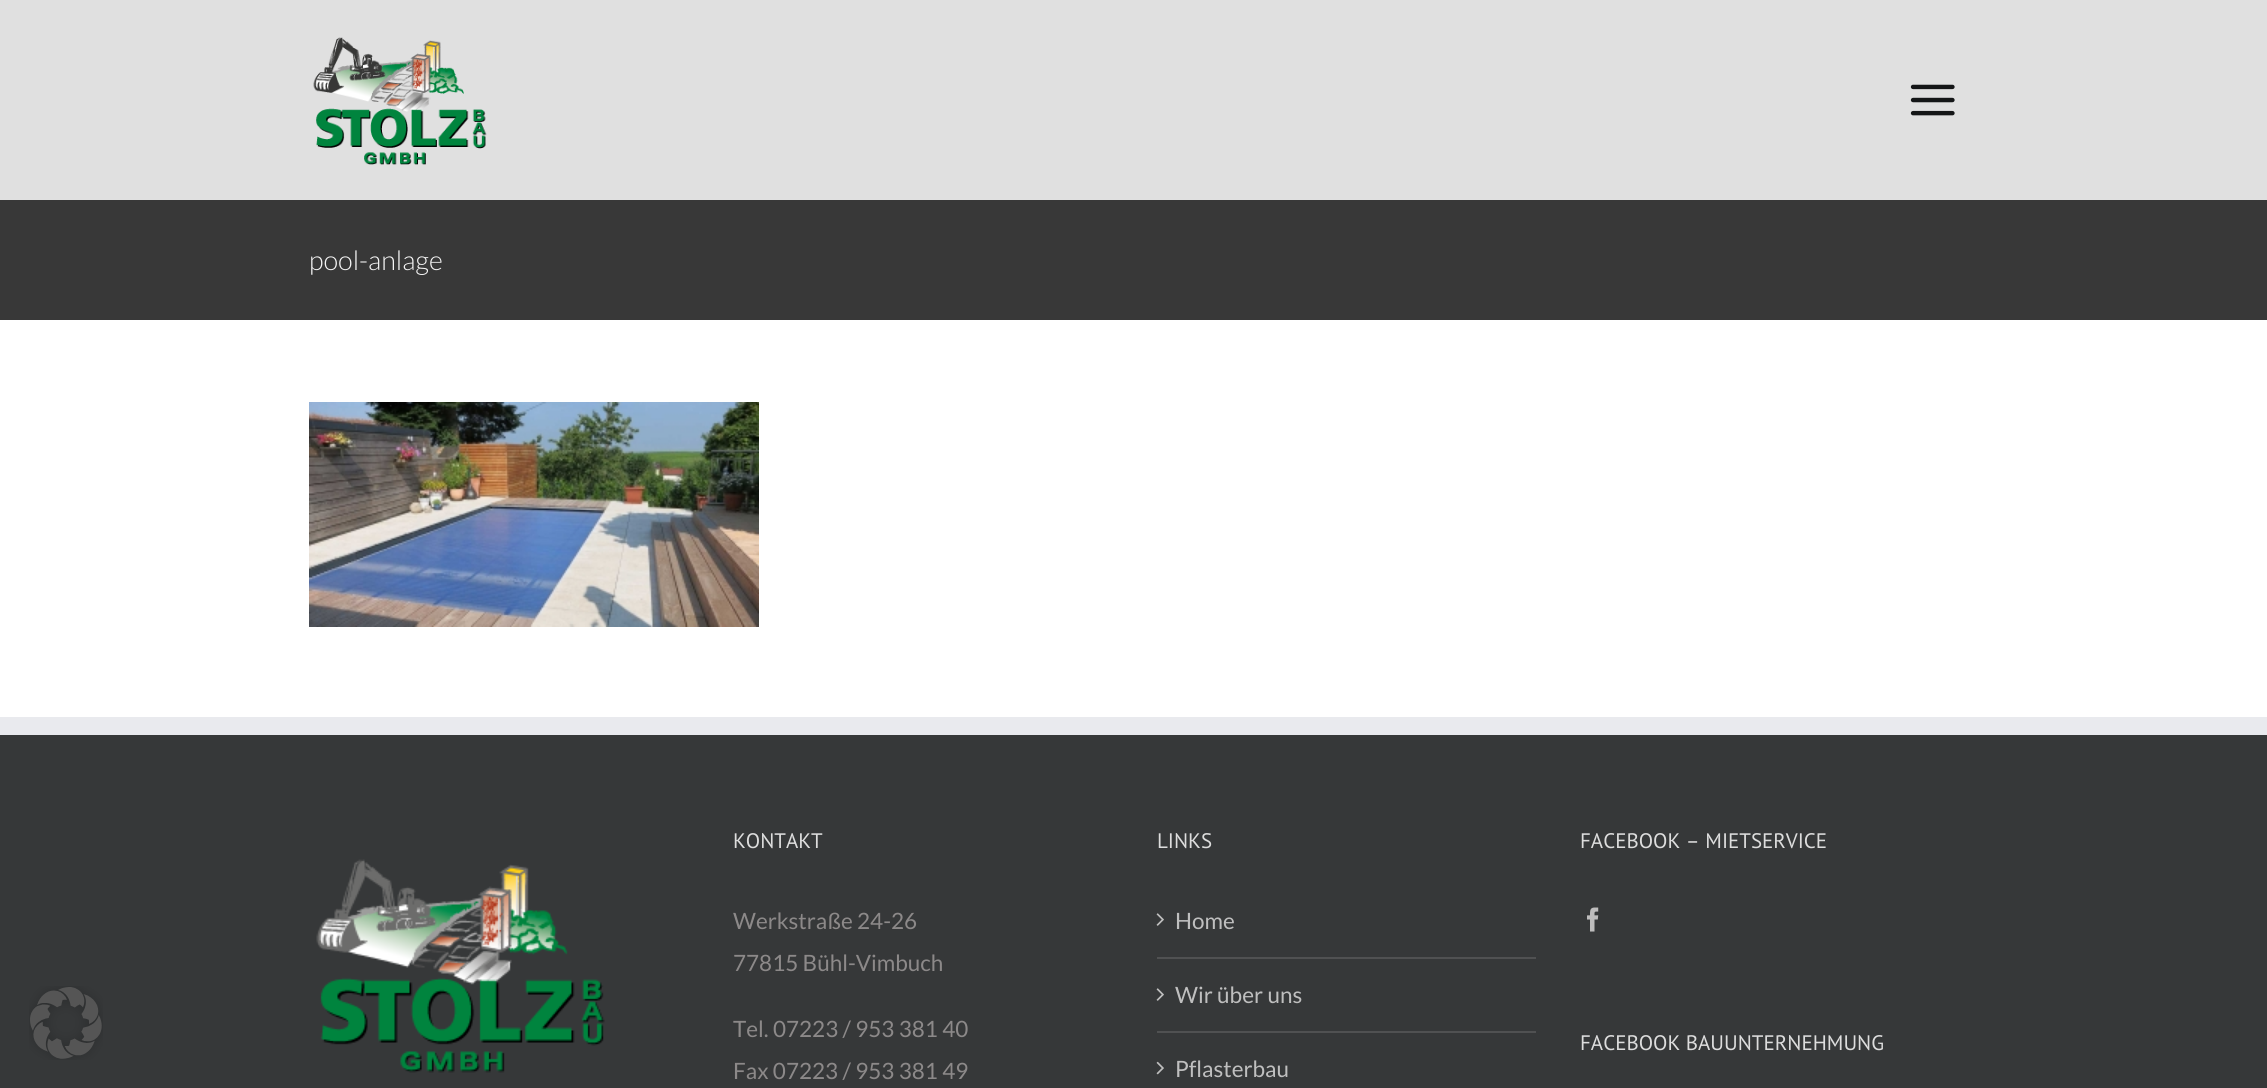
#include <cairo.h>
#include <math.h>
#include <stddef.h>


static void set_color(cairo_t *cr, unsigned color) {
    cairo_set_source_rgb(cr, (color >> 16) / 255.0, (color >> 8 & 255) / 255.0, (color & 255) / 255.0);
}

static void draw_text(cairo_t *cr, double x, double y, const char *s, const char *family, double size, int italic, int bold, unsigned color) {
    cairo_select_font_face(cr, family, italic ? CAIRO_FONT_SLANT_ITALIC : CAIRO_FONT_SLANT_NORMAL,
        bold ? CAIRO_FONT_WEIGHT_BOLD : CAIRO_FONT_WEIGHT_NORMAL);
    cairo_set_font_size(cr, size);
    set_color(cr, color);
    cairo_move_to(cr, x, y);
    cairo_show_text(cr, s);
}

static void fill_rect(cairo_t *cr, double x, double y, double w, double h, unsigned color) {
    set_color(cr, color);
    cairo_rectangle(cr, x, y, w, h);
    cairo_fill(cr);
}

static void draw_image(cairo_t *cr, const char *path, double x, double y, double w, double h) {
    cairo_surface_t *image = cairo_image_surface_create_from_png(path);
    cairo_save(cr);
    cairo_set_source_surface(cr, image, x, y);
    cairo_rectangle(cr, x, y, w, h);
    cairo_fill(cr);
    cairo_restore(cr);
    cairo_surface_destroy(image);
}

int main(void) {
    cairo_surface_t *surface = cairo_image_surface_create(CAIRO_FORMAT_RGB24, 2267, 1088);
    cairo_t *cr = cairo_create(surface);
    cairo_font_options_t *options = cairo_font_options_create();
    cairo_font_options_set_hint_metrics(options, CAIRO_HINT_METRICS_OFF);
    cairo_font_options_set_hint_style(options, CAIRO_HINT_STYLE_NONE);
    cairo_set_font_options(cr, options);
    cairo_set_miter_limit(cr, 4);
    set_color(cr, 0xFFFFFF);
    cairo_paint(cr);
    fill_rect(cr, 0, 735, 2267, 353, 0x363839);
    draw_image(cr, "assets/img1.png", 29, 986, 74, 74);
    fill_rect(cr, 0, 0, 2267, 200, 0xE0E0E0);
    draw_image(cr, "assets/img2.png", 313, 37, 174, 128);
    draw_image(cr, "assets/img3.png", 1910, 84, 45, 32);
    fill_rect(cr, 0, 200, 2267, 120, 0x383838);
    draw_text(cr, 309, 270, "pool-anlage", "Lato Light", 27, 0, 0, 0xF4F4F4);
    draw_image(cr, "assets/img4.png", 309, 402, 450, 225);
    fill_rect(cr, 0, 717, 2267, 18, 0xE9EAEE);
    draw_image(cr, "assets/img5.png", 316, 859, 289, 214);
    draw_text(cr, 733, 848, "KONTAKT", "PT Sans", 21, 0, 0, 0xDDDDDD);
    draw_text(cr, 733, 929, "Werkstraße 24-26", "Lato", 22.5, 0, 0, 0x8C8989);
    draw_text(cr, 733, 971, "77815 Bühl-Vimbuch", "Lato", 22.5, 0, 0, 0x8C8989);
    draw_text(cr, 733, 1037, "Tel. 07223 / 953 381 40", "Lato", 22.5, 0, 0, 0x8C8989);
    draw_text(cr, 733, 1079, "Fax 07223 / 953 381 49", "Lato", 22.5, 0, 0, 0x8C8989);
    draw_text(cr, 1157, 848, "LINKS", "PT Sans", 21, 0, 0, 0xDDDDDD);
    fill_rect(cr, 1157, 957, 379, 2, 0x505152);
    draw_image(cr, "assets/img6.png", 1156, 913, 8, 13);
    draw_text(cr, 1175, 929, "Home", "Lato", 22.5, 0, 0, 0xBFBFBF);
    fill_rect(cr, 1157, 1031, 379, 2, 0x505152);
    draw_image(cr, "assets/img6.png", 1156, 988, 8, 13);
    draw_text(cr, 1175, 1003, "Wir über uns", "Lato", 22.5, 0, 0, 0xBFBFBF);
    draw_image(cr, "assets/img7.png", 1156, 1061, 8, 14);
    draw_text(cr, 1175, 1077, "Pflasterbau", "Lato", 22.5, 0, 0, 0xBFBFBF);
    draw_text(cr, 1580, 848, "FACEBOOK – MIETSERVICE", "PT Sans", 21, 0, 0, 0xDDDDDD);
    draw_image(cr, "assets/img8.png", 1587, 907, 12, 25);
    draw_text(cr, 1580, 1050, "FACEBOOK BAUUNTERNEHMUNG", "PT Sans", 21, 0, 0, 0xDDDDDD);
    cairo_surface_write_to_png(surface, "output.png");
    cairo_font_options_destroy(options);
    cairo_destroy(cr);
    cairo_surface_destroy(surface);
    return 0;
}
